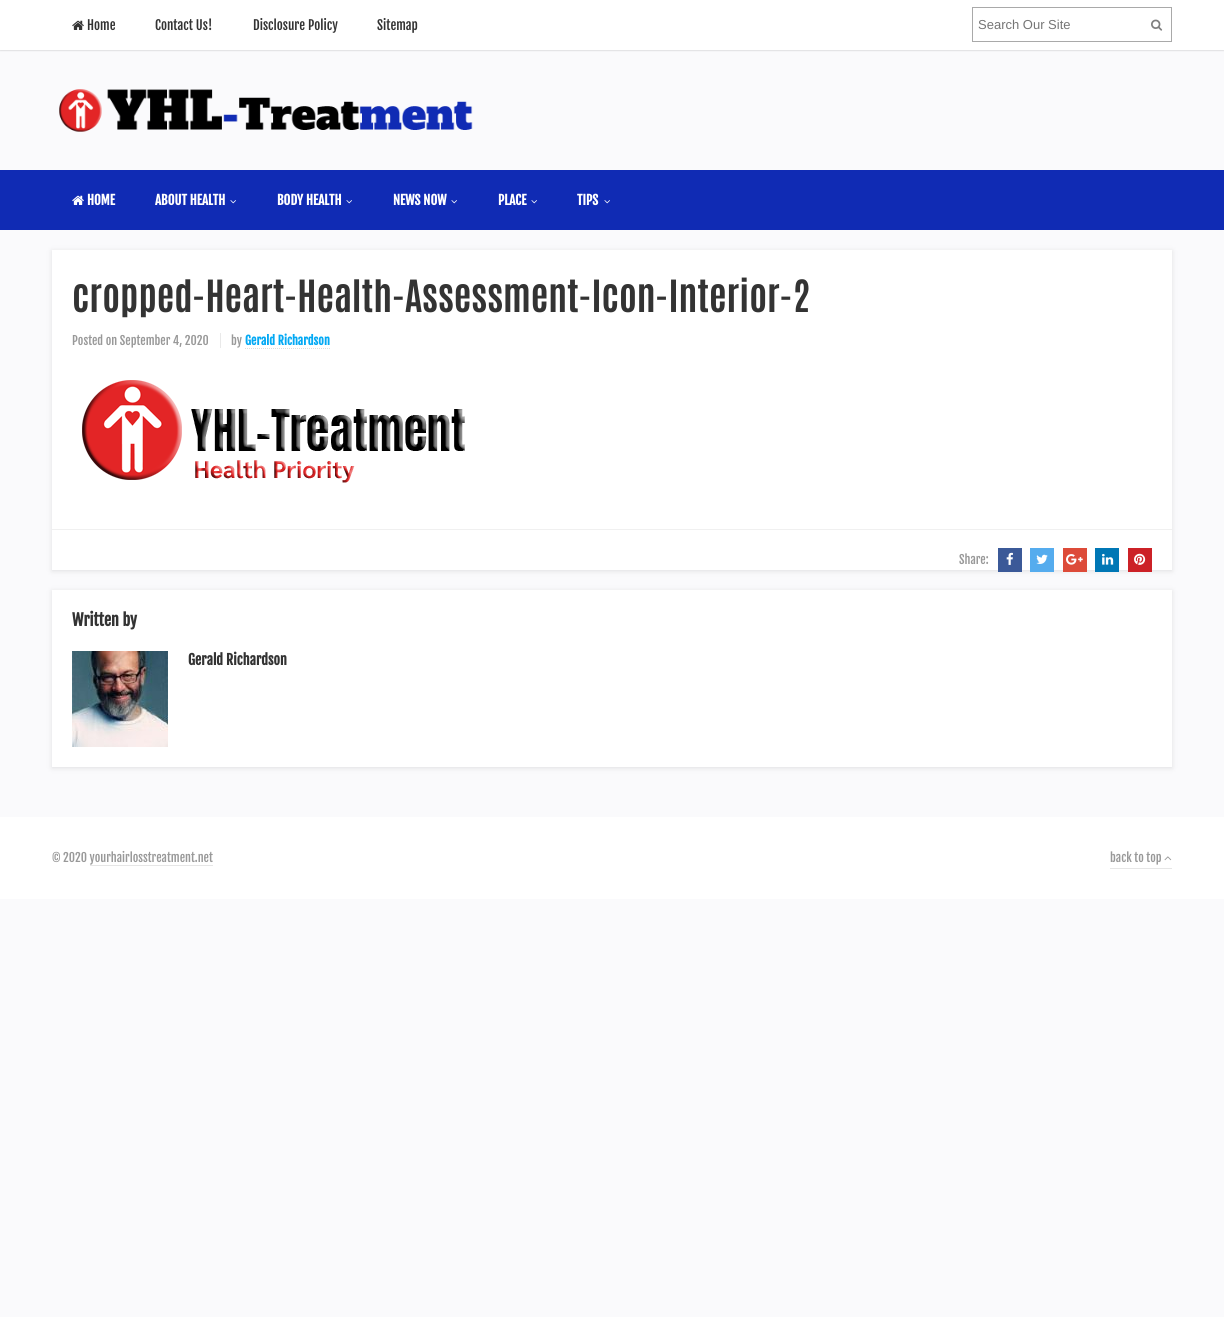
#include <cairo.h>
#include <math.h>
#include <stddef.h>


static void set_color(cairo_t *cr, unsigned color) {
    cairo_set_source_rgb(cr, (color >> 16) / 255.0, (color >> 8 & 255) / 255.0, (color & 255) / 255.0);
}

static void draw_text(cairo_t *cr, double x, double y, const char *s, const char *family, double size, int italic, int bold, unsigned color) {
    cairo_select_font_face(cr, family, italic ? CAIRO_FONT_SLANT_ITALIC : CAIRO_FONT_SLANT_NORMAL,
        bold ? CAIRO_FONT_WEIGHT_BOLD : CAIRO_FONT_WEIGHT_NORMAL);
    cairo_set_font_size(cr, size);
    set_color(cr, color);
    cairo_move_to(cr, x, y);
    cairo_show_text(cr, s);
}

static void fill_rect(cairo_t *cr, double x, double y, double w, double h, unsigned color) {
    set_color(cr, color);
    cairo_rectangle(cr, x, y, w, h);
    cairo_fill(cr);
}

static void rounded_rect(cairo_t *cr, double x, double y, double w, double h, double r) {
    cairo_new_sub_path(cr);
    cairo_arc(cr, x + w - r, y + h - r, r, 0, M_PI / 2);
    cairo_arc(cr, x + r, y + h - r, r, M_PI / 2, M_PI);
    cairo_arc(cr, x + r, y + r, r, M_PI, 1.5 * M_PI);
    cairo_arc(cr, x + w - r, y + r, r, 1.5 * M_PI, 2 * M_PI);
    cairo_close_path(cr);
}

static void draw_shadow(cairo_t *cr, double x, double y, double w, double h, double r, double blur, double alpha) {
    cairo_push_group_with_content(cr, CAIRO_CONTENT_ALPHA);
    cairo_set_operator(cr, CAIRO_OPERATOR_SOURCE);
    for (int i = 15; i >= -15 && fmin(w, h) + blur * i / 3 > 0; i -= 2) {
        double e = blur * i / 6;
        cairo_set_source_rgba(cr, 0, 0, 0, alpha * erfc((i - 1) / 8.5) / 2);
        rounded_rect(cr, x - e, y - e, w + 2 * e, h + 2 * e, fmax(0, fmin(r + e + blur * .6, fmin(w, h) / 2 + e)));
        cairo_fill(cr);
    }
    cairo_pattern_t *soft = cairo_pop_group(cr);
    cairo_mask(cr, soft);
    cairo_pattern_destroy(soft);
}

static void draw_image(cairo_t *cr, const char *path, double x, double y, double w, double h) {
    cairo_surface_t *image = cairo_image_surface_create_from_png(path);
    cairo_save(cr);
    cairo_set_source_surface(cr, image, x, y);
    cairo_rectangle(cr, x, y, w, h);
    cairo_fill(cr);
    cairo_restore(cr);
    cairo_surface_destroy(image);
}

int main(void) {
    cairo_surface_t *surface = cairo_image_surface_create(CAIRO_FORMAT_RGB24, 1224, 1317);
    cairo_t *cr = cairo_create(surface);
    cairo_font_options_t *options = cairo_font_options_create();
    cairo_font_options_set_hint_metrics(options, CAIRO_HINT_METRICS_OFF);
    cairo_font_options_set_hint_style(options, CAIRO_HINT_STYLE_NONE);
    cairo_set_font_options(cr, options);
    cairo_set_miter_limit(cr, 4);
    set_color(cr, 0xFAFAFC);
    cairo_paint(cr);
    set_color(cr, 0x000000);
    draw_shadow(cr, 0, 1, 1224, 50, 0, 0.5, 0.1);
    fill_rect(cr, 0, 0, 1224, 50, 0xFFFFFF);
    draw_image(cr, "assets/img1.png", 72, 20, 12, 10);
    draw_text(cr, 87, 30, "Home", "Fjalla One", 13, 0, 0, 0x333333);
    draw_text(cr, 155, 30, "Contact Us!", "Fjalla One", 13, 0, 0, 0x333333);
    draw_text(cr, 253, 30, "Disclosure Policy", "Fjalla One", 13, 0, 0, 0x333333);
    draw_text(cr, 377, 30, "Sitemap", "Fjalla One", 13, 0, 0, 0x333333);
    cairo_rectangle(cr, 972.5, 7.5, 199, 34);
    set_color(cr, 0xA9A9A9);
    cairo_set_line_width(cr, 1);
    cairo_stroke(cr);
    draw_text(cr, 978, 29, "Search Our Site", "Liberation Sans", 13, 0, 0, 0x757575);
    draw_image(cr, "assets/img2.png", 1151, 19, 12, 12);
    draw_image(cr, "assets/img3.png", 59, 89, 414, 43);
    fill_rect(cr, 0, 170, 1224, 60, 0x102BB4);
    draw_image(cr, "assets/img4.png", 72, 195, 12, 10);
    draw_text(cr, 87, 205, "HOME", "Fjalla One", 13, 0, 1, 0xFFFFFF);
    draw_text(cr, 155, 205, "ABOUT HEALTH", "Fjalla One", 13, 0, 1, 0xFFFFFF);
    draw_image(cr, "assets/img5.png", 230, 200, 6, 4);
    draw_text(cr, 277, 205, "BODY HEALTH", "Fjalla One", 13, 0, 1, 0xFFFFFF);
    draw_image(cr, "assets/img5.png", 346, 200, 6, 4);
    draw_text(cr, 393, 205, "NEWS NOW", "Fjalla One", 13, 0, 1, 0xFFFFFF);
    draw_image(cr, "assets/img5.png", 451, 200, 6, 4);
    draw_text(cr, 498, 205, "PLACE", "Fjalla One", 13, 0, 1, 0xFFFFFF);
    draw_image(cr, "assets/img5.png", 531, 200, 6, 4);
    draw_text(cr, 577, 205, "TIPS", "Fjalla One", 13, 0, 1, 0xFFFFFF);
    draw_image(cr, "assets/img5.png", 604, 200, 6, 4);
    set_color(cr, 0xBEBEBE);
    draw_shadow(cr, 52, 251, 1120, 320, 0, 2.5, 0.46);
    fill_rect(cr, 52, 250, 1120, 320, 0xFFFFFF);
    draw_text(cr, 72, 312, "cropped-Heart-Health-Assessment-Icon-Interior-2", "Antonio", 37.75, 0, 1, 0x333333);
    draw_text(cr, 72, 345, "Posted on September 4, 2020", "Fjalla One", 12, 0, 0, 0x999999);
    draw_text(cr, 231, 345, "by", "Fjalla One", 12, 0, 0, 0x999999);
    fill_rect(cr, 220, 333, 1, 15, 0xE9E9E9);
    cairo_new_path(cr);
    cairo_move_to(cr, 245, 348.5);
    cairo_line_to(cr, 330, 348.5);
    set_color(cr, 0xDDDDDD);
    cairo_set_dash(cr, (double[]){1, 1}, 2, 0);
    cairo_stroke(cr);
    draw_text(cr, 245, 345, "Gerald Richardson", "Fjalla One", 12, 0, 1, 0x03A9F4);
    draw_image(cr, "assets/img6.png", 82, 380, 383, 103);
    fill_rect(cr, 52, 529, 1120, 1, 0xF0F0F0);
    draw_text(cr, 959, 564, "Share:", "Fjalla One", 12, 0, 0, 0x999999);
    fill_rect(cr, 998, 548, 24, 24, 0x3B5998);
    draw_image(cr, "assets/img7.png", 1006, 552, 7, 13);
    fill_rect(cr, 1030, 548, 24, 24, 0x55ACEE);
    draw_image(cr, "assets/img8.png", 1036, 554, 12, 10);
    fill_rect(cr, 1063, 548, 24, 24, 0xDD4B39);
    draw_image(cr, "assets/img9.png", 1066, 554, 17, 11);
    fill_rect(cr, 1095, 548, 24, 24, 0x0077B5);
    draw_image(cr, "assets/img10.png", 1102, 553, 12, 12);
    fill_rect(cr, 1128, 548, 24, 24, 0xCC2127);
    draw_image(cr, "assets/img11.png", 1134, 553, 12, 12);
    set_color(cr, 0xBEBEBE);
    draw_shadow(cr, 52, 591, 1120, 177, 0, 2.5, 0.46);
    fill_rect(cr, 52, 590, 1120, 177, 0xFFFFFF);
    draw_text(cr, 72, 626, "Written by", "Fjalla One", 16, 0, 1, 0x333333);
    draw_image(cr, "assets/img12.png", 72, 651, 96, 96);
    draw_text(cr, 188, 665, "Gerald Richardson", "Fjalla One", 14, 0, 1, 0x333333);
    fill_rect(cr, 0, 817, 1224, 82, 0xFFFFFF);
    draw_text(cr, 52, 862, "© 2020 yourhairlosstreatment.net", "Fjalla One", 12, 0, 0, 0x999999);
    fill_rect(cr, 1110, 868, 62, 1, 0xE6E6E6);
    draw_text(cr, 1110, 862, "back to top", "Fjalla One", 12, 0, 0, 0x999999);
    draw_image(cr, "assets/img13.png", 1164, 856, 8, 5);
    fill_rect(cr, 90, 865, 123, 1, 0xE6E6E6);
    cairo_surface_write_to_png(surface, "output.png");
    cairo_font_options_destroy(options);
    cairo_destroy(cr);
    cairo_surface_destroy(surface);
    return 0;
}
